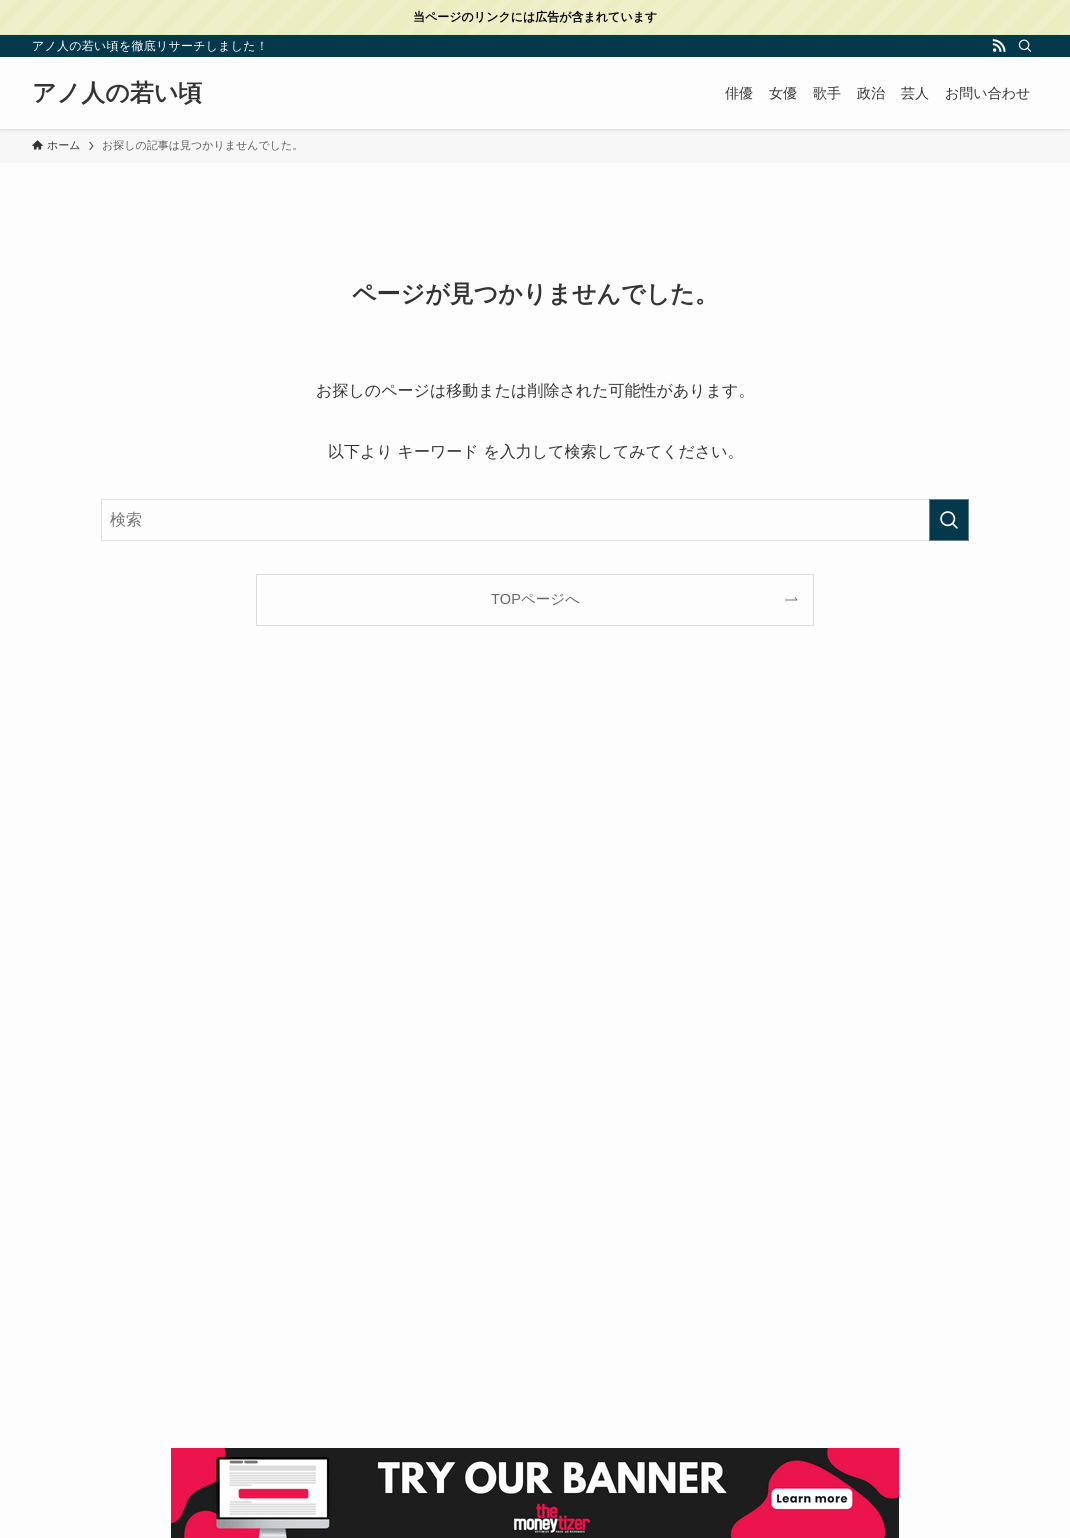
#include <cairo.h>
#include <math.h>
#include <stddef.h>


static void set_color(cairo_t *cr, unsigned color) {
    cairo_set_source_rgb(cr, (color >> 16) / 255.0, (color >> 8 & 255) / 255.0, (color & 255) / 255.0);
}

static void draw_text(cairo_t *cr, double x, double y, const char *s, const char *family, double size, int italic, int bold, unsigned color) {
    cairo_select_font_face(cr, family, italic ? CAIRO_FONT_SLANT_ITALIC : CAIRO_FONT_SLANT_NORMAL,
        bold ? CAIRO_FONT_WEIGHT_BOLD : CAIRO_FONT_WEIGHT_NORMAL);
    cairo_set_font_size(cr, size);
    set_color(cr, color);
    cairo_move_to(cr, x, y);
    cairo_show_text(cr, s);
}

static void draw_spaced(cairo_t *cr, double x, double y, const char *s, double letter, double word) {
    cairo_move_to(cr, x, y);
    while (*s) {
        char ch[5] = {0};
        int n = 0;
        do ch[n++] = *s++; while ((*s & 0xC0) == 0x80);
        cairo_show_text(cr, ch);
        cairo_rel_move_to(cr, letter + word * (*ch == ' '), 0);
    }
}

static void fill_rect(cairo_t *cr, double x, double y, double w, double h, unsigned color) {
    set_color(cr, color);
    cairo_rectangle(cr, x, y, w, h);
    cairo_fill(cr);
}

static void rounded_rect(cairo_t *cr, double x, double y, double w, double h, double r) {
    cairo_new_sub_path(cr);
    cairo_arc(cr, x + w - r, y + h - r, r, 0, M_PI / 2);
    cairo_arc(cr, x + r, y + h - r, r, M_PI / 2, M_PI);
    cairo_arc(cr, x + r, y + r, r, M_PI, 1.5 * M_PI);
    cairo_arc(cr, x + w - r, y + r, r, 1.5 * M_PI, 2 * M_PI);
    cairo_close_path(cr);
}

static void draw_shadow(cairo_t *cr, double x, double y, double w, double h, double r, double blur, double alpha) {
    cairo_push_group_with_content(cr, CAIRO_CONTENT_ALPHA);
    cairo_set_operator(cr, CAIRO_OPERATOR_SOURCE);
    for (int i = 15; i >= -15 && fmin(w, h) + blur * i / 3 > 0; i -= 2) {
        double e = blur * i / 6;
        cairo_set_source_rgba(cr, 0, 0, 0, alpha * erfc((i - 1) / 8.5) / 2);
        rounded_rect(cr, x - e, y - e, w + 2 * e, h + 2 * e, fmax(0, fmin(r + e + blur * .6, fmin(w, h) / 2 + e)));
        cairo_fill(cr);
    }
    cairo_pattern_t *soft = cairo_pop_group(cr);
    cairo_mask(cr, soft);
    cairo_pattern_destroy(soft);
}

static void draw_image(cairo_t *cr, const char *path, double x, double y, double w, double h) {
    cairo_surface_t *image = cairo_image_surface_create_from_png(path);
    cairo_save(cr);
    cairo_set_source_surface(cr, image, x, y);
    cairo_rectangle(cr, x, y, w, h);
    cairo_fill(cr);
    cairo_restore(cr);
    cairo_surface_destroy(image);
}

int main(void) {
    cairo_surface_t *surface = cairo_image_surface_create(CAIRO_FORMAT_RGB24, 1070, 1538);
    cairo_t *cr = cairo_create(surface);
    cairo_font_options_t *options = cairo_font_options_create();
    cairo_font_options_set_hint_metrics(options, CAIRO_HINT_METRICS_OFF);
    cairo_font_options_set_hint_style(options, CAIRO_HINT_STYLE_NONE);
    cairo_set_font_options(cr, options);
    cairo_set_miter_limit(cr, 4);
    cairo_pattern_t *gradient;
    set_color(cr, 0xFDFDFD);
    cairo_paint(cr);
    gradient = cairo_pattern_create_linear(811, 294, 251, -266);
    cairo_pattern_add_color_stop_rgba(gradient, 0, 0.937, 0.937, 0.792, 1);
    cairo_pattern_add_color_stop_rgba(gradient, 0.01, 0.937, 0.937, 0.792, 1);
    cairo_pattern_add_color_stop_rgba(gradient, 0.01, 0.929, 0.929, 0.769, 1);
    cairo_pattern_add_color_stop_rgba(gradient, 0.02, 0.929, 0.929, 0.769, 1);
    cairo_pattern_add_color_stop_rgba(gradient, 0.02, 0.937, 0.937, 0.792, 1);
    cairo_pattern_add_color_stop_rgba(gradient, 0.02, 0.929, 0.929, 0.769, 1);
    cairo_pattern_add_color_stop_rgba(gradient, 0.03, 0.929, 0.929, 0.769, 1);
    cairo_pattern_add_color_stop_rgba(gradient, 0.03, 0.937, 0.937, 0.792, 1);
    cairo_pattern_add_color_stop_rgba(gradient, 0.04, 0.937, 0.937, 0.792, 1);
    cairo_pattern_add_color_stop_rgba(gradient, 0.04, 0.929, 0.929, 0.769, 1);
    cairo_pattern_add_color_stop_rgba(gradient, 0.05, 0.929, 0.929, 0.769, 1);
    cairo_pattern_add_color_stop_rgba(gradient, 0.05, 0.937, 0.937, 0.792, 1);
    cairo_pattern_add_color_stop_rgba(gradient, 0.05, 0.929, 0.929, 0.769, 1);
    cairo_pattern_add_color_stop_rgba(gradient, 0.06, 0.929, 0.929, 0.769, 1);
    cairo_pattern_add_color_stop_rgba(gradient, 0.06, 0.937, 0.937, 0.792, 1);
    cairo_pattern_add_color_stop_rgba(gradient, 0.07, 0.937, 0.937, 0.792, 1);
    cairo_pattern_add_color_stop_rgba(gradient, 0.07, 0.929, 0.929, 0.769, 1);
    cairo_pattern_add_color_stop_rgba(gradient, 0.08, 0.929, 0.929, 0.769, 1);
    cairo_pattern_add_color_stop_rgba(gradient, 0.08, 0.937, 0.937, 0.792, 1);
    cairo_pattern_add_color_stop_rgba(gradient, 0.08, 0.929, 0.929, 0.769, 1);
    cairo_pattern_add_color_stop_rgba(gradient, 0.09, 0.929, 0.929, 0.769, 1);
    cairo_pattern_add_color_stop_rgba(gradient, 0.09, 0.937, 0.937, 0.792, 1);
    cairo_pattern_add_color_stop_rgba(gradient, 0.1, 0.937, 0.937, 0.792, 1);
    cairo_pattern_add_color_stop_rgba(gradient, 0.1, 0.929, 0.929, 0.769, 1);
    cairo_pattern_add_color_stop_rgba(gradient, 0.11, 0.929, 0.929, 0.769, 1);
    cairo_pattern_add_color_stop_rgba(gradient, 0.11, 0.937, 0.937, 0.792, 1);
    cairo_pattern_add_color_stop_rgba(gradient, 0.11, 0.929, 0.929, 0.769, 1);
    cairo_pattern_add_color_stop_rgba(gradient, 0.12, 0.929, 0.929, 0.769, 1);
    cairo_pattern_add_color_stop_rgba(gradient, 0.12, 0.937, 0.937, 0.792, 1);
    cairo_pattern_add_color_stop_rgba(gradient, 0.13, 0.937, 0.937, 0.792, 1);
    cairo_pattern_add_color_stop_rgba(gradient, 0.13, 0.929, 0.929, 0.769, 1);
    cairo_pattern_add_color_stop_rgba(gradient, 0.14, 0.929, 0.929, 0.769, 1);
    cairo_pattern_add_color_stop_rgba(gradient, 0.14, 0.937, 0.937, 0.792, 1);
    cairo_pattern_add_color_stop_rgba(gradient, 0.14, 0.929, 0.929, 0.769, 1);
    cairo_pattern_add_color_stop_rgba(gradient, 0.15, 0.929, 0.929, 0.769, 1);
    cairo_pattern_add_color_stop_rgba(gradient, 0.15, 0.937, 0.937, 0.792, 1);
    cairo_pattern_add_color_stop_rgba(gradient, 0.16, 0.937, 0.937, 0.792, 1);
    cairo_pattern_add_color_stop_rgba(gradient, 0.16, 0.929, 0.929, 0.769, 1);
    cairo_pattern_add_color_stop_rgba(gradient, 0.17, 0.929, 0.929, 0.769, 1);
    cairo_pattern_add_color_stop_rgba(gradient, 0.17, 0.937, 0.937, 0.792, 1);
    cairo_pattern_add_color_stop_rgba(gradient, 0.17, 0.929, 0.929, 0.769, 1);
    cairo_pattern_add_color_stop_rgba(gradient, 0.18, 0.929, 0.929, 0.769, 1);
    cairo_pattern_add_color_stop_rgba(gradient, 0.18, 0.937, 0.937, 0.792, 1);
    cairo_pattern_add_color_stop_rgba(gradient, 0.19, 0.937, 0.937, 0.792, 1);
    cairo_pattern_add_color_stop_rgba(gradient, 0.19, 0.929, 0.929, 0.769, 1);
    cairo_pattern_add_color_stop_rgba(gradient, 0.2, 0.929, 0.929, 0.769, 1);
    cairo_pattern_add_color_stop_rgba(gradient, 0.2, 0.937, 0.937, 0.792, 1);
    cairo_pattern_add_color_stop_rgba(gradient, 0.2, 0.929, 0.929, 0.769, 1);
    cairo_pattern_add_color_stop_rgba(gradient, 0.21, 0.929, 0.929, 0.769, 1);
    cairo_pattern_add_color_stop_rgba(gradient, 0.21, 0.937, 0.937, 0.792, 1);
    cairo_pattern_add_color_stop_rgba(gradient, 0.22, 0.937, 0.937, 0.792, 1);
    cairo_pattern_add_color_stop_rgba(gradient, 0.22, 0.929, 0.929, 0.769, 1);
    cairo_pattern_add_color_stop_rgba(gradient, 0.23, 0.929, 0.929, 0.769, 1);
    cairo_pattern_add_color_stop_rgba(gradient, 0.23, 0.937, 0.937, 0.792, 1);
    cairo_pattern_add_color_stop_rgba(gradient, 0.23, 0.929, 0.929, 0.769, 1);
    cairo_pattern_add_color_stop_rgba(gradient, 0.24, 0.929, 0.929, 0.769, 1);
    cairo_pattern_add_color_stop_rgba(gradient, 0.24, 0.937, 0.937, 0.792, 1);
    cairo_pattern_add_color_stop_rgba(gradient, 0.25, 0.937, 0.937, 0.792, 1);
    cairo_pattern_add_color_stop_rgba(gradient, 0.25, 0.929, 0.929, 0.769, 1);
    cairo_pattern_add_color_stop_rgba(gradient, 0.26, 0.929, 0.929, 0.769, 1);
    cairo_pattern_add_color_stop_rgba(gradient, 0.26, 0.937, 0.937, 0.792, 1);
    cairo_pattern_add_color_stop_rgba(gradient, 0.27, 0.937, 0.937, 0.792, 1);
    cairo_pattern_add_color_stop_rgba(gradient, 0.27, 0.929, 0.929, 0.769, 1);
    cairo_pattern_add_color_stop_rgba(gradient, 0.27, 0.937, 0.937, 0.792, 1);
    cairo_pattern_add_color_stop_rgba(gradient, 0.28, 0.937, 0.937, 0.792, 1);
    cairo_pattern_add_color_stop_rgba(gradient, 0.28, 0.929, 0.929, 0.769, 1);
    cairo_pattern_add_color_stop_rgba(gradient, 0.29, 0.929, 0.929, 0.769, 1);
    cairo_pattern_add_color_stop_rgba(gradient, 0.29, 0.937, 0.937, 0.792, 1);
    cairo_pattern_add_color_stop_rgba(gradient, 0.3, 0.937, 0.937, 0.792, 1);
    cairo_pattern_add_color_stop_rgba(gradient, 0.3, 0.929, 0.929, 0.769, 1);
    cairo_pattern_add_color_stop_rgba(gradient, 0.3, 0.937, 0.937, 0.792, 1);
    cairo_pattern_add_color_stop_rgba(gradient, 0.31, 0.937, 0.937, 0.792, 1);
    cairo_pattern_add_color_stop_rgba(gradient, 0.31, 0.929, 0.929, 0.769, 1);
    cairo_pattern_add_color_stop_rgba(gradient, 0.32, 0.929, 0.929, 0.769, 1);
    cairo_pattern_add_color_stop_rgba(gradient, 0.32, 0.937, 0.937, 0.792, 1);
    cairo_pattern_add_color_stop_rgba(gradient, 0.33, 0.937, 0.937, 0.792, 1);
    cairo_pattern_add_color_stop_rgba(gradient, 0.33, 0.929, 0.929, 0.769, 1);
    cairo_pattern_add_color_stop_rgba(gradient, 0.33, 0.937, 0.937, 0.792, 1);
    cairo_pattern_add_color_stop_rgba(gradient, 0.34, 0.937, 0.937, 0.792, 1);
    cairo_pattern_add_color_stop_rgba(gradient, 0.34, 0.929, 0.929, 0.769, 1);
    cairo_pattern_add_color_stop_rgba(gradient, 0.35, 0.929, 0.929, 0.769, 1);
    cairo_pattern_add_color_stop_rgba(gradient, 0.35, 0.937, 0.937, 0.792, 1);
    cairo_pattern_add_color_stop_rgba(gradient, 0.36, 0.937, 0.937, 0.792, 1);
    cairo_pattern_add_color_stop_rgba(gradient, 0.36, 0.929, 0.929, 0.769, 1);
    cairo_pattern_add_color_stop_rgba(gradient, 0.36, 0.937, 0.937, 0.792, 1);
    cairo_pattern_add_color_stop_rgba(gradient, 0.37, 0.937, 0.937, 0.792, 1);
    cairo_pattern_add_color_stop_rgba(gradient, 0.37, 0.929, 0.929, 0.769, 1);
    cairo_pattern_add_color_stop_rgba(gradient, 0.38, 0.929, 0.929, 0.769, 1);
    cairo_pattern_add_color_stop_rgba(gradient, 0.38, 0.937, 0.937, 0.792, 1);
    cairo_pattern_add_color_stop_rgba(gradient, 0.39, 0.937, 0.937, 0.792, 1);
    cairo_pattern_add_color_stop_rgba(gradient, 0.39, 0.929, 0.929, 0.769, 1);
    cairo_pattern_add_color_stop_rgba(gradient, 0.39, 0.937, 0.937, 0.792, 1);
    cairo_pattern_add_color_stop_rgba(gradient, 0.4, 0.937, 0.937, 0.792, 1);
    cairo_pattern_add_color_stop_rgba(gradient, 0.4, 0.929, 0.929, 0.769, 1);
    cairo_pattern_add_color_stop_rgba(gradient, 0.41, 0.929, 0.929, 0.769, 1);
    cairo_pattern_add_color_stop_rgba(gradient, 0.41, 0.937, 0.937, 0.792, 1);
    cairo_pattern_add_color_stop_rgba(gradient, 0.42, 0.937, 0.937, 0.792, 1);
    cairo_pattern_add_color_stop_rgba(gradient, 0.42, 0.929, 0.929, 0.769, 1);
    cairo_pattern_add_color_stop_rgba(gradient, 0.42, 0.937, 0.937, 0.792, 1);
    cairo_pattern_add_color_stop_rgba(gradient, 0.43, 0.937, 0.937, 0.792, 1);
    cairo_pattern_add_color_stop_rgba(gradient, 0.43, 0.929, 0.929, 0.769, 1);
    cairo_pattern_add_color_stop_rgba(gradient, 0.44, 0.929, 0.929, 0.769, 1);
    cairo_pattern_add_color_stop_rgba(gradient, 0.44, 0.937, 0.937, 0.792, 1);
    cairo_pattern_add_color_stop_rgba(gradient, 0.45, 0.937, 0.937, 0.792, 1);
    cairo_pattern_add_color_stop_rgba(gradient, 0.45, 0.929, 0.929, 0.769, 1);
    cairo_pattern_add_color_stop_rgba(gradient, 0.45, 0.937, 0.937, 0.792, 1);
    cairo_pattern_add_color_stop_rgba(gradient, 0.46, 0.937, 0.937, 0.792, 1);
    cairo_pattern_add_color_stop_rgba(gradient, 0.46, 0.929, 0.929, 0.769, 1);
    cairo_pattern_add_color_stop_rgba(gradient, 0.47, 0.929, 0.929, 0.769, 1);
    cairo_pattern_add_color_stop_rgba(gradient, 0.47, 0.937, 0.937, 0.792, 1);
    cairo_pattern_add_color_stop_rgba(gradient, 0.48, 0.937, 0.937, 0.792, 1);
    cairo_pattern_add_color_stop_rgba(gradient, 0.48, 0.929, 0.929, 0.769, 1);
    cairo_pattern_add_color_stop_rgba(gradient, 0.48, 0.937, 0.937, 0.792, 1);
    cairo_pattern_add_color_stop_rgba(gradient, 0.49, 0.937, 0.937, 0.792, 1);
    cairo_pattern_add_color_stop_rgba(gradient, 0.49, 0.929, 0.929, 0.769, 1);
    cairo_pattern_add_color_stop_rgba(gradient, 0.5, 0.929, 0.929, 0.769, 1);
    cairo_pattern_add_color_stop_rgba(gradient, 0.5, 0.937, 0.937, 0.792, 1);
    cairo_pattern_add_color_stop_rgba(gradient, 0.51, 0.937, 0.937, 0.792, 1);
    cairo_pattern_add_color_stop_rgba(gradient, 0.51, 0.929, 0.929, 0.769, 1);
    cairo_pattern_add_color_stop_rgba(gradient, 0.52, 0.929, 0.929, 0.769, 1);
    cairo_pattern_add_color_stop_rgba(gradient, 0.52, 0.937, 0.937, 0.792, 1);
    cairo_pattern_add_color_stop_rgba(gradient, 0.52, 0.929, 0.929, 0.769, 1);
    cairo_pattern_add_color_stop_rgba(gradient, 0.53, 0.929, 0.929, 0.769, 1);
    cairo_pattern_add_color_stop_rgba(gradient, 0.53, 0.937, 0.937, 0.792, 1);
    cairo_pattern_add_color_stop_rgba(gradient, 0.54, 0.937, 0.937, 0.792, 1);
    cairo_pattern_add_color_stop_rgba(gradient, 0.54, 0.929, 0.929, 0.769, 1);
    cairo_pattern_add_color_stop_rgba(gradient, 0.55, 0.929, 0.929, 0.769, 1);
    cairo_pattern_add_color_stop_rgba(gradient, 0.55, 0.937, 0.937, 0.792, 1);
    cairo_pattern_add_color_stop_rgba(gradient, 0.55, 0.929, 0.929, 0.769, 1);
    cairo_pattern_add_color_stop_rgba(gradient, 0.56, 0.929, 0.929, 0.769, 1);
    cairo_pattern_add_color_stop_rgba(gradient, 0.56, 0.937, 0.937, 0.792, 1);
    cairo_pattern_add_color_stop_rgba(gradient, 0.57, 0.937, 0.937, 0.792, 1);
    cairo_pattern_add_color_stop_rgba(gradient, 0.57, 0.929, 0.929, 0.769, 1);
    cairo_pattern_add_color_stop_rgba(gradient, 0.58, 0.929, 0.929, 0.769, 1);
    cairo_pattern_add_color_stop_rgba(gradient, 0.58, 0.937, 0.937, 0.792, 1);
    cairo_pattern_add_color_stop_rgba(gradient, 0.58, 0.929, 0.929, 0.769, 1);
    cairo_pattern_add_color_stop_rgba(gradient, 0.59, 0.929, 0.929, 0.769, 1);
    cairo_pattern_add_color_stop_rgba(gradient, 0.59, 0.937, 0.937, 0.792, 1);
    cairo_pattern_add_color_stop_rgba(gradient, 0.6, 0.937, 0.937, 0.792, 1);
    cairo_pattern_add_color_stop_rgba(gradient, 0.6, 0.929, 0.929, 0.769, 1);
    cairo_pattern_add_color_stop_rgba(gradient, 0.61, 0.929, 0.929, 0.769, 1);
    cairo_pattern_add_color_stop_rgba(gradient, 0.61, 0.937, 0.937, 0.792, 1);
    cairo_pattern_add_color_stop_rgba(gradient, 0.61, 0.929, 0.929, 0.769, 1);
    cairo_pattern_add_color_stop_rgba(gradient, 0.62, 0.929, 0.929, 0.769, 1);
    cairo_pattern_add_color_stop_rgba(gradient, 0.62, 0.937, 0.937, 0.792, 1);
    cairo_pattern_add_color_stop_rgba(gradient, 0.63, 0.937, 0.937, 0.792, 1);
    cairo_pattern_add_color_stop_rgba(gradient, 0.63, 0.929, 0.929, 0.769, 1);
    cairo_pattern_add_color_stop_rgba(gradient, 0.64, 0.929, 0.929, 0.769, 1);
    cairo_pattern_add_color_stop_rgba(gradient, 0.64, 0.937, 0.937, 0.792, 1);
    cairo_pattern_add_color_stop_rgba(gradient, 0.64, 0.929, 0.929, 0.769, 1);
    cairo_pattern_add_color_stop_rgba(gradient, 0.65, 0.929, 0.929, 0.769, 1);
    cairo_pattern_add_color_stop_rgba(gradient, 0.65, 0.937, 0.937, 0.792, 1);
    cairo_pattern_add_color_stop_rgba(gradient, 0.66, 0.937, 0.937, 0.792, 1);
    cairo_pattern_add_color_stop_rgba(gradient, 0.66, 0.929, 0.929, 0.769, 1);
    cairo_pattern_add_color_stop_rgba(gradient, 0.67, 0.929, 0.929, 0.769, 1);
    cairo_pattern_add_color_stop_rgba(gradient, 0.67, 0.937, 0.937, 0.792, 1);
    cairo_pattern_add_color_stop_rgba(gradient, 0.67, 0.929, 0.929, 0.769, 1);
    cairo_pattern_add_color_stop_rgba(gradient, 0.68, 0.929, 0.929, 0.769, 1);
    cairo_pattern_add_color_stop_rgba(gradient, 0.68, 0.937, 0.937, 0.792, 1);
    cairo_pattern_add_color_stop_rgba(gradient, 0.69, 0.937, 0.937, 0.792, 1);
    cairo_pattern_add_color_stop_rgba(gradient, 0.69, 0.929, 0.929, 0.769, 1);
    cairo_pattern_add_color_stop_rgba(gradient, 0.7, 0.929, 0.929, 0.769, 1);
    cairo_pattern_add_color_stop_rgba(gradient, 0.7, 0.937, 0.937, 0.792, 1);
    cairo_pattern_add_color_stop_rgba(gradient, 0.7, 0.929, 0.929, 0.769, 1);
    cairo_pattern_add_color_stop_rgba(gradient, 0.71, 0.929, 0.929, 0.769, 1);
    cairo_pattern_add_color_stop_rgba(gradient, 0.71, 0.937, 0.937, 0.792, 1);
    cairo_pattern_add_color_stop_rgba(gradient, 0.72, 0.937, 0.937, 0.792, 1);
    cairo_pattern_add_color_stop_rgba(gradient, 0.72, 0.929, 0.929, 0.769, 1);
    cairo_pattern_add_color_stop_rgba(gradient, 0.73, 0.929, 0.929, 0.769, 1);
    cairo_pattern_add_color_stop_rgba(gradient, 0.73, 0.937, 0.937, 0.792, 1);
    cairo_pattern_add_color_stop_rgba(gradient, 0.73, 0.929, 0.929, 0.769, 1);
    cairo_pattern_add_color_stop_rgba(gradient, 0.74, 0.929, 0.929, 0.769, 1);
    cairo_pattern_add_color_stop_rgba(gradient, 0.74, 0.937, 0.937, 0.792, 1);
    cairo_pattern_add_color_stop_rgba(gradient, 0.75, 0.937, 0.937, 0.792, 1);
    cairo_pattern_add_color_stop_rgba(gradient, 0.75, 0.929, 0.929, 0.769, 1);
    cairo_pattern_add_color_stop_rgba(gradient, 0.76, 0.929, 0.929, 0.769, 1);
    cairo_pattern_add_color_stop_rgba(gradient, 0.76, 0.937, 0.937, 0.792, 1);
    cairo_pattern_add_color_stop_rgba(gradient, 0.77, 0.937, 0.937, 0.792, 1);
    cairo_pattern_add_color_stop_rgba(gradient, 0.77, 0.929, 0.929, 0.769, 1);
    cairo_pattern_add_color_stop_rgba(gradient, 0.77, 0.937, 0.937, 0.792, 1);
    cairo_pattern_add_color_stop_rgba(gradient, 0.78, 0.937, 0.937, 0.792, 1);
    cairo_pattern_add_color_stop_rgba(gradient, 0.78, 0.929, 0.929, 0.769, 1);
    cairo_pattern_add_color_stop_rgba(gradient, 0.79, 0.929, 0.929, 0.769, 1);
    cairo_pattern_add_color_stop_rgba(gradient, 0.79, 0.937, 0.937, 0.792, 1);
    cairo_pattern_add_color_stop_rgba(gradient, 0.8, 0.937, 0.937, 0.792, 1);
    cairo_pattern_add_color_stop_rgba(gradient, 0.8, 0.929, 0.929, 0.769, 1);
    cairo_pattern_add_color_stop_rgba(gradient, 0.8, 0.937, 0.937, 0.792, 1);
    cairo_pattern_add_color_stop_rgba(gradient, 0.81, 0.937, 0.937, 0.792, 1);
    cairo_pattern_add_color_stop_rgba(gradient, 0.81, 0.929, 0.929, 0.769, 1);
    cairo_pattern_add_color_stop_rgba(gradient, 0.82, 0.929, 0.929, 0.769, 1);
    cairo_pattern_add_color_stop_rgba(gradient, 0.82, 0.937, 0.937, 0.792, 1);
    cairo_pattern_add_color_stop_rgba(gradient, 0.83, 0.937, 0.937, 0.792, 1);
    cairo_pattern_add_color_stop_rgba(gradient, 0.83, 0.929, 0.929, 0.769, 1);
    cairo_pattern_add_color_stop_rgba(gradient, 0.83, 0.937, 0.937, 0.792, 1);
    cairo_pattern_add_color_stop_rgba(gradient, 0.84, 0.937, 0.937, 0.792, 1);
    cairo_pattern_add_color_stop_rgba(gradient, 0.84, 0.929, 0.929, 0.769, 1);
    cairo_pattern_add_color_stop_rgba(gradient, 0.85, 0.929, 0.929, 0.769, 1);
    cairo_pattern_add_color_stop_rgba(gradient, 0.85, 0.937, 0.937, 0.792, 1);
    cairo_pattern_add_color_stop_rgba(gradient, 0.86, 0.937, 0.937, 0.792, 1);
    cairo_pattern_add_color_stop_rgba(gradient, 0.86, 0.929, 0.929, 0.769, 1);
    cairo_pattern_add_color_stop_rgba(gradient, 0.86, 0.937, 0.937, 0.792, 1);
    cairo_pattern_add_color_stop_rgba(gradient, 0.87, 0.937, 0.937, 0.792, 1);
    cairo_pattern_add_color_stop_rgba(gradient, 0.87, 0.929, 0.929, 0.769, 1);
    cairo_pattern_add_color_stop_rgba(gradient, 0.88, 0.929, 0.929, 0.769, 1);
    cairo_pattern_add_color_stop_rgba(gradient, 0.88, 0.937, 0.937, 0.792, 1);
    cairo_pattern_add_color_stop_rgba(gradient, 0.89, 0.937, 0.937, 0.792, 1);
    cairo_pattern_add_color_stop_rgba(gradient, 0.89, 0.929, 0.929, 0.769, 1);
    cairo_pattern_add_color_stop_rgba(gradient, 0.89, 0.937, 0.937, 0.792, 1);
    cairo_pattern_add_color_stop_rgba(gradient, 0.9, 0.937, 0.937, 0.792, 1);
    cairo_pattern_add_color_stop_rgba(gradient, 0.9, 0.929, 0.929, 0.769, 1);
    cairo_pattern_add_color_stop_rgba(gradient, 0.91, 0.929, 0.929, 0.769, 1);
    cairo_pattern_add_color_stop_rgba(gradient, 0.91, 0.937, 0.937, 0.792, 1);
    cairo_pattern_add_color_stop_rgba(gradient, 0.92, 0.937, 0.937, 0.792, 1);
    cairo_pattern_add_color_stop_rgba(gradient, 0.92, 0.929, 0.929, 0.769, 1);
    cairo_pattern_add_color_stop_rgba(gradient, 0.92, 0.937, 0.937, 0.792, 1);
    cairo_pattern_add_color_stop_rgba(gradient, 0.93, 0.937, 0.937, 0.792, 1);
    cairo_pattern_add_color_stop_rgba(gradient, 0.93, 0.929, 0.929, 0.769, 1);
    cairo_pattern_add_color_stop_rgba(gradient, 0.94, 0.929, 0.929, 0.769, 1);
    cairo_pattern_add_color_stop_rgba(gradient, 0.94, 0.937, 0.937, 0.792, 1);
    cairo_pattern_add_color_stop_rgba(gradient, 0.95, 0.937, 0.937, 0.792, 1);
    cairo_pattern_add_color_stop_rgba(gradient, 0.95, 0.929, 0.929, 0.769, 1);
    cairo_pattern_add_color_stop_rgba(gradient, 0.95, 0.937, 0.937, 0.792, 1);
    cairo_pattern_add_color_stop_rgba(gradient, 0.96, 0.937, 0.937, 0.792, 1);
    cairo_pattern_add_color_stop_rgba(gradient, 0.96, 0.929, 0.929, 0.769, 1);
    cairo_pattern_add_color_stop_rgba(gradient, 0.97, 0.929, 0.929, 0.769, 1);
    cairo_pattern_add_color_stop_rgba(gradient, 0.97, 0.937, 0.937, 0.792, 1);
    cairo_pattern_add_color_stop_rgba(gradient, 0.98, 0.937, 0.937, 0.792, 1);
    cairo_pattern_add_color_stop_rgba(gradient, 0.98, 0.929, 0.929, 0.769, 1);
    cairo_pattern_add_color_stop_rgba(gradient, 0.98, 0.937, 0.937, 0.792, 1);
    cairo_pattern_add_color_stop_rgba(gradient, 0.99, 0.937, 0.937, 0.792, 1);
    cairo_pattern_add_color_stop_rgba(gradient, 0.99, 0.929, 0.929, 0.769, 1);
    cairo_pattern_add_color_stop_rgba(gradient, 1, 0.929, 0.929, 0.769, 1);
    cairo_set_source(cr, gradient);
    cairo_pattern_destroy(gradient);
    cairo_rectangle(cr, 0, 0, 1070, 35);
    cairo_fill(cr);
    draw_text(cr, 413, 21, "当ページのリンクには広告が含まれています", "WenQuanYi Zen Hei", 12, 0, 1, 0x000000);
    fill_rect(cr, 0, 129, 1070, 34, 0xF7F7F7);
    cairo_save(cr);
    cairo_set_fill_rule(cr, CAIRO_FILL_RULE_EVEN_ODD);
    cairo_new_path(cr);
    cairo_move_to(cr, 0, 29);
    cairo_line_to(cr, 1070, 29);
    cairo_line_to(cr, 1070, 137);
    cairo_line_to(cr, 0, 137);
    cairo_close_path(cr);
    cairo_move_to(cr, 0, 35);
    cairo_line_to(cr, 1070, 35);
    cairo_line_to(cr, 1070, 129);
    cairo_line_to(cr, 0, 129);
    cairo_close_path(cr);
    cairo_clip(cr);
    set_color(cr, 0x000000);
    draw_shadow(cr, 0, 36, 1070, 94, 0, 2, 0.12);
    cairo_restore(cr);
    fill_rect(cr, 0, 35, 1070, 22, 0x04384C);
    cairo_select_font_face(cr, "WenQuanYi Zen Hei Medium", CAIRO_FONT_SLANT_NORMAL, CAIRO_FONT_WEIGHT_NORMAL);
    set_color(cr, 0xFFFFFF);
    draw_spaced(cr, 32, 50, "アノ人の若い頃を徹底リサーチしました！", 0.25, 0);
    draw_image(cr, "assets/img1.png", 992, 39, 14, 13);
    draw_image(cr, "assets/img2.png", 1018, 39, 14, 13);
    draw_text(cr, 32, 101, "アノ人の若い頃", "WenQuanYi Zen Hei", 24, 0, 1, 0x333333);
    draw_text(cr, 725, 98, "俳優", "WenQuanYi Zen Hei Medium", 14, 0, 0, 0x333333);
    draw_text(cr, 769, 98, "女優", "WenQuanYi Zen Hei Medium", 14, 0, 0, 0x333333);
    draw_text(cr, 813, 98, "歌手", "WenQuanYi Zen Hei Medium", 14, 0, 0, 0x333333);
    draw_text(cr, 857, 98, "政治", "WenQuanYi Zen Hei Medium", 14, 0, 0, 0x333333);
    draw_text(cr, 901, 98, "芸人", "WenQuanYi Zen Hei Medium", 14, 0, 0, 0x333333);
    draw_text(cr, 945, 98, "お問い合わせ", "WenQuanYi Zen Hei Medium", 14, 0, 0, 0x333333);
    draw_image(cr, "assets/img3.png", 32, 140, 11, 10);
    draw_text(cr, 47, 149, "ホーム", "WenQuanYi Zen Hei Medium", 11, 0, 0, 0x333333);
    set_color(cr, 0x5A5A5A);
    cairo_new_path(cr);
    cairo_move_to(cr, 90.5, 142);
    cairo_line_to(cr, 89, 142);
    cairo_line_to(cr, 92, 146);
    cairo_line_to(cr, 89, 150);
    cairo_line_to(cr, 90.5, 150);
    cairo_line_to(cr, 93.5, 146);
    cairo_close_path(cr);
    cairo_fill(cr);
    draw_text(cr, 102, 149, "お探しの記事は見つかりませんでした。", "WenQuanYi Zen Hei Medium", 11, 0, 0, 0x5A5A5A);
    draw_text(cr, 352, 302, "ページが見つかりませんでした。", "WenQuanYi Zen Hei", 24, 0, 1, 0x333333);
    draw_text(cr, 316, 396, "お探しのページは移動または削除された可能性があります。", "WenQuanYi Zen Hei Medium", 16, 0, 0, 0x333333);
    draw_text(cr, 328, 457, "以下より キーワード を入力して検索してみてください。", "WenQuanYi Zen Hei Medium", 16, 0, 0, 0x333333);
    cairo_rectangle(cr, 101.5, 499.5, 867, 41);
    set_color(cr, 0xE3E3E3);
    cairo_set_line_width(cr, 1);
    cairo_stroke(cr);
    draw_text(cr, 110, 525, "検索", "WenQuanYi Zen Hei Medium", 16, 0, 0, 0x757575);
    set_color(cr, 0x04384C);
    cairo_rectangle(cr, 929.5, 499.5, 39, 41);
    cairo_fill_preserve(cr);
    set_color(cr, 0x66808A);
    cairo_stroke(cr);
    draw_image(cr, "assets/img4.png", 940, 511, 18, 18);
    cairo_rectangle(cr, 256.5, 574.5, 557, 51);
    set_color(cr, 0xDCDCDC);
    cairo_stroke(cr);
    draw_text(cr, 491, 604, "TOP", "Liberation Sans", 14.5, 0, 0, 0x666666);
    draw_text(cr, 521, 604, "ページへ", "WenQuanYi Zen Hei Medium", 14.5, 0, 0, 0x666666);
    draw_image(cr, "assets/img5.png", 785, 597, 13, 4);
    draw_image(cr, "assets/img6.png", 171, 1448, 728, 90);
    cairo_surface_write_to_png(surface, "output.png");
    cairo_font_options_destroy(options);
    cairo_destroy(cr);
    cairo_surface_destroy(surface);
    return 0;
}
